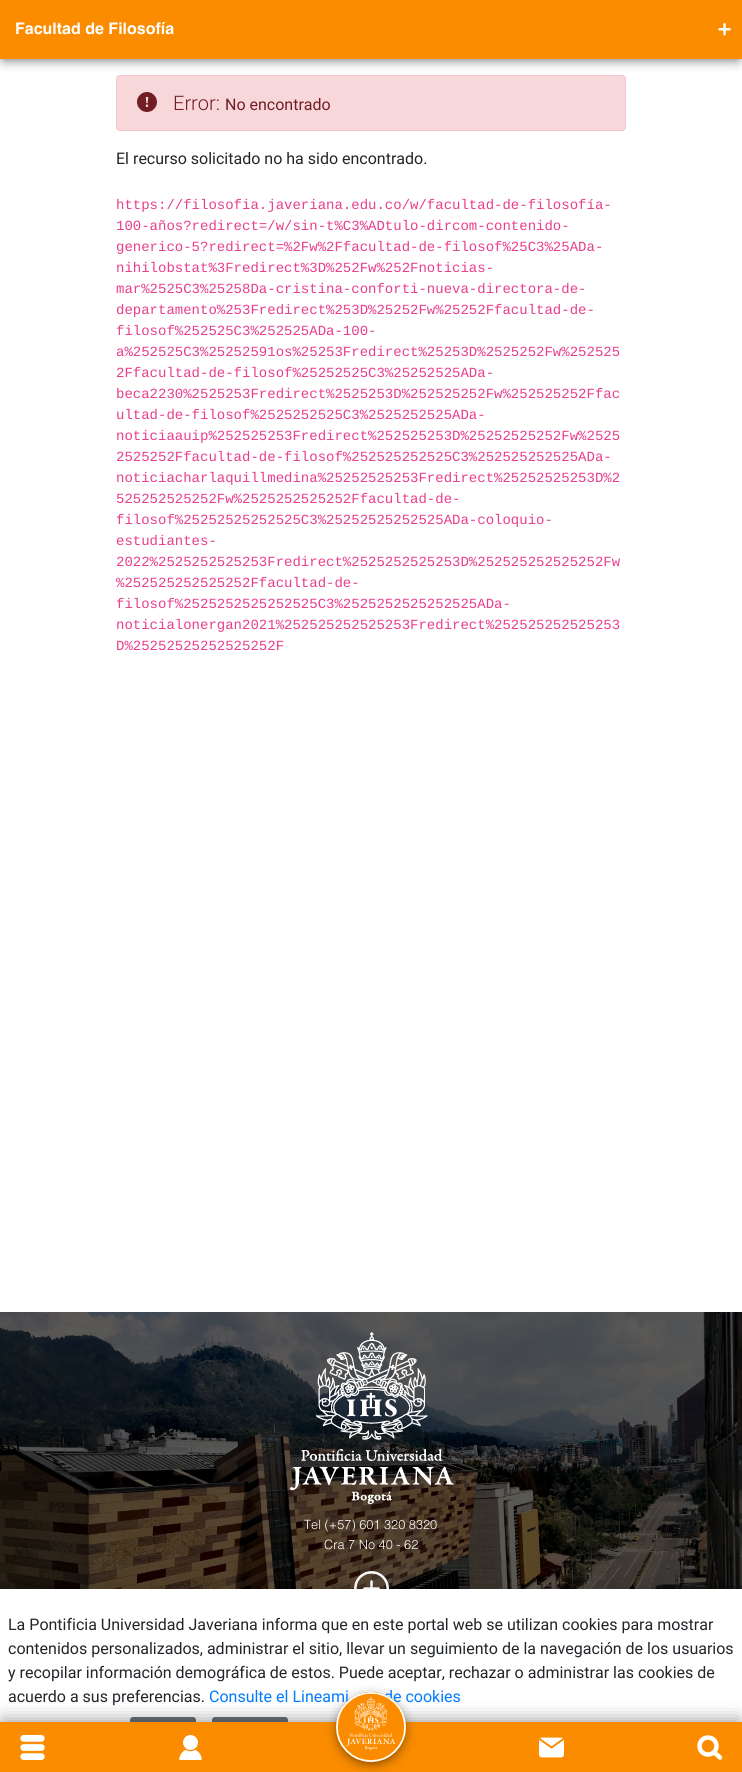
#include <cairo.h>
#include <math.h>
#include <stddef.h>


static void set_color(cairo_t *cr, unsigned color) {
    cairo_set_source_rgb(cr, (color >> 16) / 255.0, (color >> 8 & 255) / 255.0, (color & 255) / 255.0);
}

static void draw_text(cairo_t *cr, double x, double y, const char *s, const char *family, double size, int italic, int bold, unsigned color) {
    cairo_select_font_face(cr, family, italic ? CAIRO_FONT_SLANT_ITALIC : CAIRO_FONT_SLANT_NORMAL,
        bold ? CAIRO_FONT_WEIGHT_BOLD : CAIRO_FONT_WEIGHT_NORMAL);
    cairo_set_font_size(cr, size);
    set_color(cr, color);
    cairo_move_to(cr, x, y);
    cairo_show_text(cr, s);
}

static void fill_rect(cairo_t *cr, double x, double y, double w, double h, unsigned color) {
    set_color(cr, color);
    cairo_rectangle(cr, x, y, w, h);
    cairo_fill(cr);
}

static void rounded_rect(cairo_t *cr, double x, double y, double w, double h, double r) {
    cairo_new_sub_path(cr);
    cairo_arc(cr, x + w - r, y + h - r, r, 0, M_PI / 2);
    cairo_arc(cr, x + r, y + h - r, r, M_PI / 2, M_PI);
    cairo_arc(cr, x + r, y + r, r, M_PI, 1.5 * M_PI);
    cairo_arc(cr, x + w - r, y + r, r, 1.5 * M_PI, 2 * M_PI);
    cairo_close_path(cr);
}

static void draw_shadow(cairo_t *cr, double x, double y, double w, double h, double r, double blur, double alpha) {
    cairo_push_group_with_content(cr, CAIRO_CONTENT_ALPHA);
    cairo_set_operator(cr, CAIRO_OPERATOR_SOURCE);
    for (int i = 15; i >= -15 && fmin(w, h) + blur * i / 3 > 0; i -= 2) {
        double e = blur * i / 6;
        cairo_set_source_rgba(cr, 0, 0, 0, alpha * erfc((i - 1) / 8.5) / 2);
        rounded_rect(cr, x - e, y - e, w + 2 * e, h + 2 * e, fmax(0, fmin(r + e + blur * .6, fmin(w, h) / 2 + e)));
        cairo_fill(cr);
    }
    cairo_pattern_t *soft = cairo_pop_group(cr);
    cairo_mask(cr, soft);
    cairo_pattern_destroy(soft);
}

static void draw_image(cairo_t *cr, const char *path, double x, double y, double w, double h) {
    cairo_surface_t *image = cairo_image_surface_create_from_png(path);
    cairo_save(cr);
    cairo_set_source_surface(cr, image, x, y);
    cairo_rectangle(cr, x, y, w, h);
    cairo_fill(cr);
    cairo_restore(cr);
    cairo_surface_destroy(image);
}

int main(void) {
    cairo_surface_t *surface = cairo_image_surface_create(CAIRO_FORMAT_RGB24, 742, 1772);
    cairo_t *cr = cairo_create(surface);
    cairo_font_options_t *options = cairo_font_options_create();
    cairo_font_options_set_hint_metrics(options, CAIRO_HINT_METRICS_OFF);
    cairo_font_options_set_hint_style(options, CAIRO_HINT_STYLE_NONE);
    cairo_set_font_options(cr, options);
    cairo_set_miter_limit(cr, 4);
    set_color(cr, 0xFFFFFF);
    cairo_paint(cr);
    set_color(cr, 0xF8D7DA);
    rounded_rect(cr, 116.5, 75.5, 509, 55, 3.5);
    cairo_fill_preserve(cr);
    set_color(cr, 0xF5C6CB);
    cairo_set_line_width(cr, 1);
    cairo_stroke(cr);
    set_color(cr, 0x000000);
    draw_shadow(cr, 4, 7, 734, 51, 0, 6.5, 0.75);
    fill_rect(cr, 0, 0, 742, 59, 0xFB8C00);
    draw_text(cr, 15, 34, "Facultad de Filosofía", "Helvetica", 16, 0, 1, 0xFFFFFF);
    draw_image(cr, "assets/img1.png", 718, 23, 13, 13);
    draw_image(cr, "assets/img7.png", 0, 1312, 742, 277);
    draw_image(cr, "assets/img9.png", 354, 1571, 35, 18);
    set_color(cr, 0x000000);
    draw_shadow(cr, 0, 1605, 742, 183, 0, 24, 0.18);
    fill_rect(cr, 0, 1589, 742, 133, 0xFFFFFF);
    set_color(cr, 0x6C757D);
    rounded_rect(cr, 130.5, 1717.5, 65, 30, 2.5);
    cairo_fill_preserve(cr);
    cairo_stroke(cr);
    rounded_rect(cr, 212.5, 1717.5, 75, 30, 2.5);
    cairo_fill_preserve(cr);
    cairo_stroke(cr);
    set_color(cr, 0x000000);
    draw_shadow(cr, 3, 1722, 736, 44, 0, 9.5, 0.47);
    fill_rect(cr, 0, 1722, 742, 50, 0xFB8C00);
    draw_image(cr, "assets/img2.png", 20, 1735, 25, 25);
    draw_image(cr, "assets/img3.png", 179, 1735, 23, 25);
    set_color(cr, 0x000000);
    draw_shadow(cr, 340, 1699, 62, 62, 31, 6.5, 0.75);
    draw_text(cr, 209, 1702, "Consulte el Lineami", "Roboto", 16, 0, 0, 0x007BFF);
    draw_text(cr, 384, 1702, "de cookies", "Roboto", 16, 0, 0, 0x007BFF);
    set_color(cr, 0xFB8C00);
    cairo_new_path(cr);
    cairo_arc(cr, 371, 1727, 35, 0, 2 * M_PI);
    cairo_fill(cr);
    draw_image(cr, "assets/img4.png", 336, 1692, 70, 70);
    draw_image(cr, "assets/img5.png", 539, 1737, 25, 21);
    cairo_arc(cr, 708, 1746, 8.5, 0, 2 * M_PI);
    set_color(cr, 0xFFFFFF);
    cairo_set_line_width(cr, 4.5);
    cairo_stroke(cr);
    cairo_new_path(cr);
    cairo_move_to(cr, 720, 1757.5);
    cairo_line_to(cr, 715, 1753);
    cairo_set_line_cap(cr, CAIRO_LINE_CAP_ROUND);
    cairo_set_line_join(cr, CAIRO_LINE_JOIN_ROUND);
    cairo_stroke(cr);
    draw_image(cr, "assets/img6.png", 137, 92, 20, 20);
    draw_text(cr, 173, 110, "Error:", "Roboto Light", 20, 0, 0, 0x721C24);
    draw_text(cr, 225, 110, "No encontrado", "Roboto", 16, 0, 0, 0x721C24);
    draw_text(cr, 116, 164, "El recurso solicitado no ha sido encontrado.", "Roboto", 16, 0, 0, 0x212529);
    draw_text(cr, 116, 209, "https://filosofia.javeriana.edu.co/w/facultad-de-filosofía-", "Liberation Mono", 14, 0, 0, 0xE83E8C);
    draw_text(cr, 116, 230, "100-años?redirect=/w/sin-t%C3%ADtulo-dircom-contenido-", "Liberation Mono", 14, 0, 0, 0xE83E8C);
    draw_text(cr, 116, 251, "generico-5?redirect=%2Fw%2Ffacultad-de-filosof%25C3%25ADa-", "Liberation Mono", 14, 0, 0, 0xE83E8C);
    draw_text(cr, 116, 272, "nihilobstat%3Fredirect%3D%252Fw%252Fnoticias-", "Liberation Mono", 14, 0, 0, 0xE83E8C);
    draw_text(cr, 116, 293, "mar%2525C3%25258Da-cristina-conforti-nueva-directora-de-", "Liberation Mono", 14, 0, 0, 0xE83E8C);
    draw_text(cr, 116, 314, "departamento%253Fredirect%253D%25252Fw%25252Ffacultad-de-", "Liberation Mono", 14, 0, 0, 0xE83E8C);
    draw_text(cr, 116, 335, "filosof%252525C3%252525ADa-100-", "Liberation Mono", 14, 0, 0, 0xE83E8C);
    draw_text(cr, 116, 356, "a%252525C3%25252591os%25253Fredirect%25253D%2525252Fw%252525", "Liberation Mono", 14, 0, 0, 0xE83E8C);
    draw_text(cr, 116, 377, "2Ffacultad-de-filosof%25252525C3%25252525ADa-", "Liberation Mono", 14, 0, 0, 0xE83E8C);
    draw_text(cr, 116, 398, "beca2230%2525253Fredirect%2525253D%252525252Fw%252525252Ffac", "Liberation Mono", 14, 0, 0, 0xE83E8C);
    draw_text(cr, 116, 419, "ultad-de-filosof%2525252525C3%2525252525ADa-", "Liberation Mono", 14, 0, 0, 0xE83E8C);
    draw_text(cr, 116, 440, "noticiaauip%252525253Fredirect%252525253D%25252525252Fw%2525", "Liberation Mono", 14, 0, 0, 0xE83E8C);
    draw_text(cr, 116, 461, "2525252Ffacultad-de-filosof%252525252525C3%252525252525ADa-", "Liberation Mono", 14, 0, 0, 0xE83E8C);
    draw_text(cr, 116, 482, "noticiacharlaquillmedina%25252525253Fredirect%25252525253D%2", "Liberation Mono", 14, 0, 0, 0xE83E8C);
    draw_text(cr, 116, 503, "525252525252Fw%2525252525252Ffacultad-de-", "Liberation Mono", 14, 0, 0, 0xE83E8C);
    draw_text(cr, 116, 524, "filosof%25252525252525C3%25252525252525ADa-coloquio-", "Liberation Mono", 14, 0, 0, 0xE83E8C);
    draw_text(cr, 116, 545, "estudiantes-", "Liberation Mono", 14, 0, 0, 0xE83E8C);
    draw_text(cr, 116, 566, "2022%2525252525253Fredirect%2525252525253D%252525252525252Fw", "Liberation Mono", 14, 0, 0, 0xE83E8C);
    draw_text(cr, 116, 587, "%252525252525252Ffacultad-de-", "Liberation Mono", 14, 0, 0, 0xE83E8C);
    draw_text(cr, 116, 608, "filosof%2525252525252525C3%2525252525252525ADa-", "Liberation Mono", 14, 0, 0, 0xE83E8C);
    draw_text(cr, 116, 629, "noticialonergan2021%252525252525253Fredirect%252525252525253", "Liberation Mono", 14, 0, 0, 0xE83E8C);
    draw_text(cr, 116, 650, "D%25252525252525252F", "Liberation Mono", 14, 0, 0, 0xE83E8C);
    draw_image(cr, "assets/img8.png", 289, 1332, 165, 172);
    draw_text(cr, 304, 1529, "Tel (+57) 601 320 8320", "Helvetica Light", 12.75, 0, 0, 0xFFFFFF);
    draw_text(cr, 324, 1549, "Cra 7 No 40 - 62", "Helvetica Light", 12.75, 0, 0, 0xFFFFFF);
    draw_text(cr, 8, 1630, "La Pontificia Universidad Javeriana informa que en este portal web se utilizan cookies para mostrar", "Roboto", 16, 0, 0, 0x212529);
    draw_text(cr, 8, 1654, "contenidos personalizados, administrar el sitio, llevar un seguimiento de la navegación de los usuarios", "Roboto", 16, 0, 0, 0x212529);
    draw_text(cr, 8, 1678, "y recopilar información demográfica de estos. Puede aceptar, rechazar o administrar las cookies de", "Roboto", 16, 0, 0, 0x212529);
    draw_text(cr, 8, 1702, "acuerdo a sus preferencias.", "Roboto", 16, 0, 0, 0x212529);
    cairo_surface_write_to_png(surface, "output.png");
    cairo_font_options_destroy(options);
    cairo_destroy(cr);
    cairo_surface_destroy(surface);
    return 0;
}
